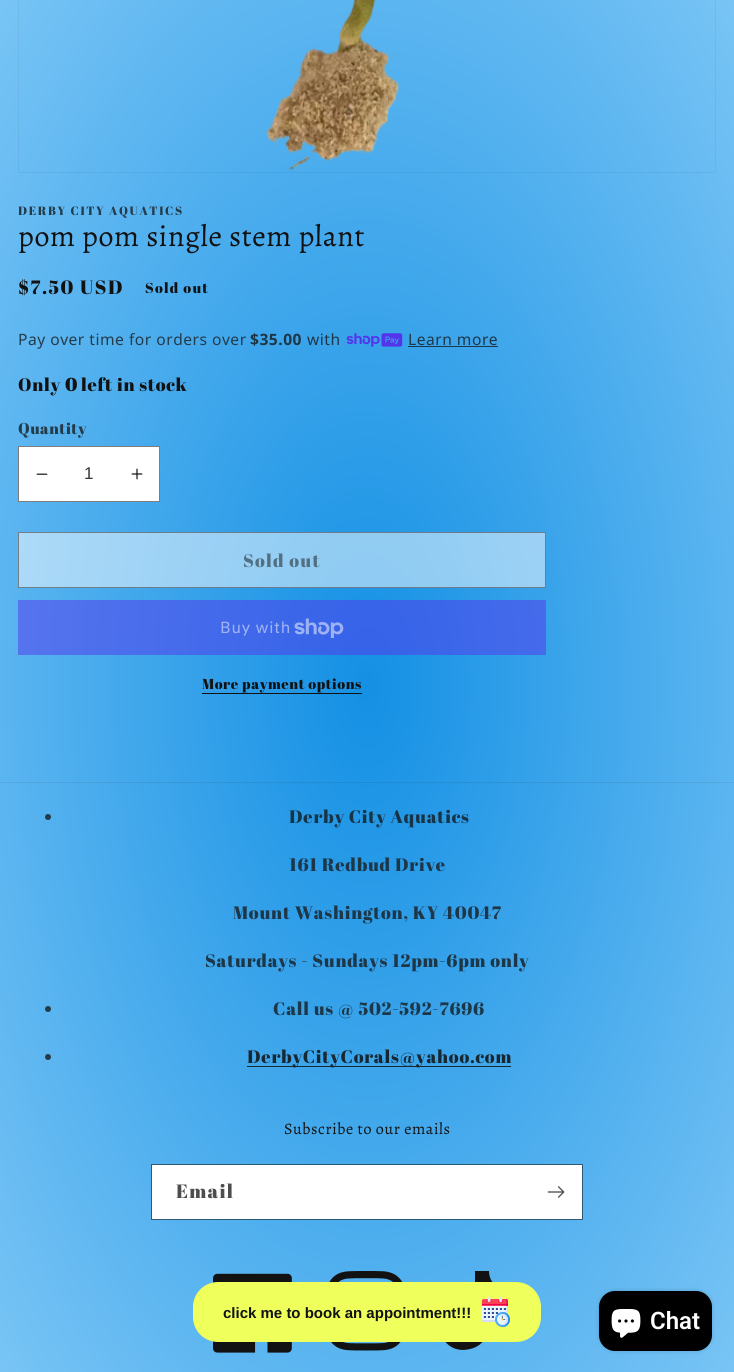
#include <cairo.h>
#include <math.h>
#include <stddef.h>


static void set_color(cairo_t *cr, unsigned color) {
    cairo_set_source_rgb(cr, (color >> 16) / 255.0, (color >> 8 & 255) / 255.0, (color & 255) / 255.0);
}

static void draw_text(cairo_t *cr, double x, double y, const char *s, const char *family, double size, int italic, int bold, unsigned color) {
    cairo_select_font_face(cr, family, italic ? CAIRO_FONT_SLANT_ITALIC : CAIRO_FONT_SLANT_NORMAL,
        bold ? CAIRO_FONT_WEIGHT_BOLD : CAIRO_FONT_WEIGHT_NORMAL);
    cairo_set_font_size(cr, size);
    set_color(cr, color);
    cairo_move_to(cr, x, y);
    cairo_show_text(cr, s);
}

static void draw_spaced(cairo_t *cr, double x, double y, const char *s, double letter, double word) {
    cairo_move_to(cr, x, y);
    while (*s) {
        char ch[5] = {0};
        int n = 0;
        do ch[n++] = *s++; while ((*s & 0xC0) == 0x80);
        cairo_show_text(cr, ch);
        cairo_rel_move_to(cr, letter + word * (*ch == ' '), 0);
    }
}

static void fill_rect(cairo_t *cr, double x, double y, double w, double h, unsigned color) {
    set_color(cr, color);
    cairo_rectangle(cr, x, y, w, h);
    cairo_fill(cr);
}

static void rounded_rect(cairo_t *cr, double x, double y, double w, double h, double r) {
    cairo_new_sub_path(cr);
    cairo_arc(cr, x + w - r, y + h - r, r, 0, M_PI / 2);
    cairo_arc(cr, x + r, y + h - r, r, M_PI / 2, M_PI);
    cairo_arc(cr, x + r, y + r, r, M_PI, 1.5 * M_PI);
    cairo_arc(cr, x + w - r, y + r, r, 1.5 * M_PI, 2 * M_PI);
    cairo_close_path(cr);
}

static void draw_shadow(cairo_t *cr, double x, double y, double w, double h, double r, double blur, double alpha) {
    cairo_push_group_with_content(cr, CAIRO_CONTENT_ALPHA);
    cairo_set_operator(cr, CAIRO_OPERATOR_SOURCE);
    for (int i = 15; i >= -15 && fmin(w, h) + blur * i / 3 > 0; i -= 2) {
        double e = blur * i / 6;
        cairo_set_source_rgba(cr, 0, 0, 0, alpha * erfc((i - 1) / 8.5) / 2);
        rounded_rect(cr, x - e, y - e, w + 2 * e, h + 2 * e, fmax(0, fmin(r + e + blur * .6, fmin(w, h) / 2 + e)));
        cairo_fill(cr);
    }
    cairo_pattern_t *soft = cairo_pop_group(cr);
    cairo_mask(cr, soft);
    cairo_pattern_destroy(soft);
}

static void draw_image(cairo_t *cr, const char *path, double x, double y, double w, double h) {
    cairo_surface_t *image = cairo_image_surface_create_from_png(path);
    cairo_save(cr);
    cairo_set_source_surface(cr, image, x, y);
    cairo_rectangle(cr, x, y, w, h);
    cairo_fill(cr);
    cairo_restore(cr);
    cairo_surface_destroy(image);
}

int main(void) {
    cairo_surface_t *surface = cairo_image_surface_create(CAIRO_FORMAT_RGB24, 734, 1372);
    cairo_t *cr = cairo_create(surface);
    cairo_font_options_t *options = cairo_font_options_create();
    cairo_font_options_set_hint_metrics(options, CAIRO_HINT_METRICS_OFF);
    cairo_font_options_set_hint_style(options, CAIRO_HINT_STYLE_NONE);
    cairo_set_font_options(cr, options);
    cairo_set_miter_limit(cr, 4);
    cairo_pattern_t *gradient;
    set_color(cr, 0xFFFFFF);
    cairo_paint(cr);
    gradient = cairo_pattern_create_radial(0, 0, 0, 0, 0, 1);
    cairo_pattern_set_matrix(gradient, &(cairo_matrix_t){1.0 / 519, 0, 0, 1.0 / 970, -1.0 * 367 / 519, -1.0 * 686 / 970});
    cairo_pattern_add_color_stop_rgba(gradient, 0, 0.078, 0.565, 0.894, 1);
    cairo_pattern_add_color_stop_rgba(gradient, 1, 0.471, 0.769, 0.961, 1);
    cairo_set_source(cr, gradient);
    cairo_pattern_destroy(gradient);
    cairo_rectangle(cr, 0, 0, 734, 1372);
    cairo_fill(cr);
    gradient = cairo_pattern_create_radial(0, 0, 0, 0, 0, 1);
    cairo_pattern_set_matrix(gradient, &(cairo_matrix_t){1.0 / 519, 0, 0, 1.0 / 970, -1.0 * 367 / 519, -1.0 * 686 / 970});
    cairo_pattern_add_color_stop_rgba(gradient, 0, 0.204, 0.384, 0.91, 1);
    cairo_pattern_add_color_stop_rgba(gradient, 1, 0.4, 0.486, 0.941, 1);
    cairo_set_source(cr, gradient);
    cairo_pattern_destroy(gradient);
    cairo_rectangle(cr, 18, 600, 528, 55);
    cairo_fill(cr);
    gradient = cairo_pattern_create_radial(0, 0, 0, 0, 0, 1);
    cairo_pattern_set_matrix(gradient, &(cairo_matrix_t){1.0 / 519, 0, 0, 1.0 / 970, -1.0 * 367 / 519, -1.0 * 686 / 970});
    cairo_pattern_add_color_stop_rgba(gradient, 0, 0.541, 0.784, 0.949, 1);
    cairo_pattern_add_color_stop_rgba(gradient, 1, 0.737, 0.886, 0.98, 1);
    cairo_set_source(cr, gradient);
    cairo_pattern_destroy(gradient);
    cairo_rectangle(cr, 18, 532, 528, 56);
    cairo_fill(cr);
    gradient = cairo_pattern_create_radial(0, 0, 0, 0, 0, 1);
    cairo_pattern_set_matrix(gradient, &(cairo_matrix_t){1.0 / 519, 0, 0, 1.0 / 970, -1.0 * 367 / 519, -1.0 * 686 / 970});
    cairo_pattern_add_color_stop_rgba(gradient, 0, 0.075, 0.196, 0.278, 1);
    cairo_pattern_add_color_stop_rgba(gradient, 1, 0.173, 0.247, 0.294, 1);
    cairo_set_source(cr, gradient);
    cairo_pattern_destroy(gradient);
    cairo_rectangle(cr, 408, 346, 90, 1);
    cairo_fill(cr);
    gradient = cairo_pattern_create_radial(0, 0, 0, 0, 0, 1);
    cairo_pattern_set_matrix(gradient, &(cairo_matrix_t){1.0 / 519, 0, 0, 1.0 / 970, -1.0 * 367 / 519, -1.0 * 686 / 970});
    cairo_pattern_add_color_stop_rgba(gradient, 0, 0.071, 0.145, 0.196, 1);
    cairo_pattern_add_color_stop_rgba(gradient, 1, 0.129, 0.176, 0.204, 1);
    cairo_set_source(cr, gradient);
    cairo_pattern_destroy(gradient);
    cairo_rectangle(cr, 247, 1066, 264, 1);
    cairo_fill(cr);
    gradient = cairo_pattern_create_radial(0, 0, 0, 0, 0, 1);
    cairo_pattern_set_matrix(gradient, &(cairo_matrix_t){1.0 / 519, 0, 0, 1.0 / 970, -1.0 * 367 / 519, -1.0 * 686 / 970});
    cairo_pattern_add_color_stop_rgba(gradient, 0, 0.078, 0.525, 0.827, 1);
    cairo_pattern_add_color_stop_rgba(gradient, 1, 0.439, 0.714, 0.89, 1);
    cairo_set_source(cr, gradient);
    cairo_pattern_destroy(gradient);
    cairo_rectangle(cr, 0, 782, 734, 1);
    cairo_fill(cr);
    cairo_rectangle(cr, 18.5, -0.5, 697, 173);
    cairo_set_source_rgba(cr, 0.071, 0.071, 0.071, 0.05);
    cairo_set_line_width(cr, 1);
    cairo_stroke(cr);
    draw_image(cr, "assets/img1.png", 266, 0, 133, 171);
    cairo_select_font_face(cr, "Abril Fatface", CAIRO_FONT_SLANT_NORMAL, CAIRO_FONT_WEIGHT_NORMAL);
    cairo_set_font_size(cr, 12);
    set_color(cr, 0x243B4A);
    draw_spaced(cr, 18, 215, "DERBY CITY AQUATICS", 1.6, 0);
    cairo_select_font_face(cr, "Alegreya", CAIRO_FONT_SLANT_NORMAL, CAIRO_FONT_WEIGHT_NORMAL);
    cairo_set_font_size(cr, 30);
    set_color(cr, 0x121212);
    draw_spaced(cr, 18, 246, "pom pom single stem plant", 0.6, 0);
    cairo_select_font_face(cr, "Abril Fatface", CAIRO_FONT_SLANT_NORMAL, CAIRO_FONT_WEIGHT_NORMAL);
    cairo_set_font_size(cr, 19.25);
    draw_spaced(cr, 18, 294, "$7.50 USD", 1.6, 0);
    cairo_set_font_size(cr, 14.4);
    draw_spaced(cr, 145, 293, "Sold out", 1.25, 0);
    cairo_select_font_face(cr, "Noto Sans", CAIRO_FONT_SLANT_NORMAL, CAIRO_FONT_WEIGHT_NORMAL);
    cairo_set_font_size(cr, 15.6);
    set_color(cr, 0x243B4A);
    draw_spaced(cr, 18, 345, "Pay over time for orders over", 0.5, 0);
    cairo_select_font_face(cr, "Noto Sans", CAIRO_FONT_SLANT_NORMAL, CAIRO_FONT_WEIGHT_BOLD);
    set_color(cr, 0x1D3748);
    draw_spaced(cr, 250, 345, "$35.00", 0.5, 0);
    cairo_select_font_face(cr, "Noto Sans", CAIRO_FONT_SLANT_NORMAL, CAIRO_FONT_WEIGHT_NORMAL);
    draw_spaced(cr, 307, 345, "with", 0.5, 0);
    draw_image(cr, "assets/img2.png", 346, 333, 57, 14);
    draw_spaced(cr, 408, 345, "Learn more", 0.5, 0);
    cairo_select_font_face(cr, "Abril Fatface", CAIRO_FONT_SLANT_NORMAL, CAIRO_FONT_WEIGHT_NORMAL);
    cairo_set_font_size(cr, 18);
    set_color(cr, 0x121212);
    draw_spaced(cr, 18, 391, "Only", 0.75, 0);
    cairo_select_font_face(cr, "Abril Fatface", CAIRO_FONT_SLANT_NORMAL, CAIRO_FONT_WEIGHT_BOLD);
    draw_spaced(cr, 65, 391, "0", 0.75, 0);
    cairo_select_font_face(cr, "Abril Fatface", CAIRO_FONT_SLANT_NORMAL, CAIRO_FONT_WEIGHT_NORMAL);
    draw_spaced(cr, 81, 391, "left in stock", 0.75, 0);
    cairo_set_font_size(cr, 15.6);
    set_color(cr, 0x243B4A);
    draw_spaced(cr, 18, 434, "Quantity", 0.5, 0);
    fill_rect(cr, 19, 447, 140, 54, 0xFFFFFF);
    draw_image(cr, "assets/img3.png", 36, 473, 12, 2);
    draw_image(cr, "assets/img4.png", 131, 468, 12, 12);
    cairo_rectangle(cr, 18.5, 446.5, 141, 55);
    set_color(cr, 0x7D7D7D);
    cairo_stroke(cr);
    draw_text(cr, 84, 479, "1", "Liberation Sans", 17, 0, 0, 0x363636);
    cairo_rectangle(cr, 18.5, 532.5, 527, 55);
    cairo_set_source_rgba(cr, 1, 1, 1, 0.5);
    cairo_stroke(cr);
    cairo_rectangle(cr, 18.5, 532.5, 527, 55);
    cairo_set_source_rgba(cr, 0.071, 0.071, 0.071, 0.5);
    cairo_stroke(cr);
    cairo_select_font_face(cr, "Abril Fatface", CAIRO_FONT_SLANT_NORMAL, CAIRO_FONT_WEIGHT_NORMAL);
    cairo_set_font_size(cr, 18);
    set_color(cr, 0x537083);
    draw_spaced(cr, 243, 567, "Sold out", 1.25, 0);
    cairo_select_font_face(cr, "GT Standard", CAIRO_FONT_SLANT_NORMAL, CAIRO_FONT_WEIGHT_NORMAL);
    cairo_set_font_size(cr, 16);
    set_color(cr, 0x9FB3F4);
    draw_spaced(cr, 220, 633, "Buy with", 0.75, 0);
    draw_image(cr, "assets/img5.png", 294, 618, 50, 20);
    cairo_select_font_face(cr, "Abril Fatface", CAIRO_FONT_SLANT_NORMAL, CAIRO_FONT_WEIGHT_NORMAL);
    cairo_set_font_size(cr, 14.4);
    set_color(cr, 0x121212);
    draw_spaced(cr, 202, 689, "More payment options", 0.6, 0);
    fill_rect(cr, 202, 693, 160, 1, 0x121212);
    set_color(cr, 0x223A49);
    cairo_new_path(cr);
    cairo_arc(cr, 48, 817, 3, 0, 2 * M_PI);
    cairo_fill(cr);
    cairo_set_font_size(cr, 18);
    set_color(cr, 0x173447);
    draw_spaced(cr, 289, 823, "Derby City Aquatics", 0.75, 0);
    set_color(cr, 0x1D3748);
    draw_spaced(cr, 289, 871, "161 Redbud Drive", 0.75, 0);
    draw_spaced(cr, 233, 919, "Mount Washington, KY 40047", 0.75, 0);
    draw_spaced(cr, 205, 967, "Saturdays - Sundays 12pm-6pm only", 0.75, 0);
    set_color(cr, 0x243B4A);
    cairo_new_path(cr);
    cairo_arc(cr, 48, 1009, 3, 0, 2 * M_PI);
    cairo_fill(cr);
    set_color(cr, 0x1D3748);
    draw_spaced(cr, 273, 1015, "Call us @ 502-592-7696", 0.75, 0);
    set_color(cr, 0x253B4A);
    cairo_new_path(cr);
    cairo_arc(cr, 48, 1057, 3, 0, 2 * M_PI);
    cairo_fill(cr);
    set_color(cr, 0x182832);
    draw_spaced(cr, 247, 1063, "DerbyCityCorals@yahoo.com", 0.75, 0);
    cairo_select_font_face(cr, "Alegreya", CAIRO_FONT_SLANT_NORMAL, CAIRO_FONT_WEIGHT_NORMAL);
    cairo_set_font_size(cr, 16);
    set_color(cr, 0x121212);
    draw_spaced(cr, 284, 1134, "Subscribe to our emails", 0.6, 0);
    fill_rect(cr, 152, 1165, 430, 54, 0xFFFFFF);
    cairo_rectangle(cr, 151.5, 1164.5, 431, 55);
    cairo_set_source_rgba(cr, 0.071, 0.071, 0.071, 0.55);
    cairo_stroke(cr);
    cairo_select_font_face(cr, "Abril Fatface", CAIRO_FONT_SLANT_NORMAL, CAIRO_FONT_WEIGHT_NORMAL);
    cairo_set_font_size(cr, 19.25);
    set_color(cr, 0x4D4D4D);
    draw_spaced(cr, 176, 1198, "Email", 1.25, 0);
    draw_image(cr, "assets/img6.png", 547, 1186, 18, 12);
    draw_image(cr, "assets/img7.png", 213, 1273, 79, 80);
    draw_image(cr, "assets/img8.png", 329, 1271, 74, 80);
    set_color(cr, 0x121212);
    cairo_new_path(cr);
    cairo_move_to(cr, 475, 1271);
    cairo_line_to(cr, 489, 1271);
    cairo_curve_to(cr, 489, 1271, 488, 1288, 508, 1290);
    cairo_line_to(cr, 508, 1303);
    cairo_curve_to(cr, 508, 1303, 497, 1304, 489, 1297);
    cairo_line_to(cr, 489, 1329);
    cairo_curve_to(cr, 487, 1339, 480, 1347, 470, 1349);
    cairo_curve_to(cr, 435, 1358, 424, 1300, 468, 1300);
    cairo_line_to(cr, 468, 1314);
    cairo_curve_to(cr, 464, 1313, 460, 1313, 457, 1315);
    cairo_curve_to(cr, 444, 1326, 463, 1345, 473, 1331);
    cairo_curve_to(cr, 477, 1327, 475, 1321, 475, 1316);
    cairo_close_path(cr);
    cairo_fill(cr);
    set_color(cr, 0xEFFF5C);
    rounded_rect(cr, 193, 1282, 348, 60, 25);
    cairo_fill(cr);
    draw_text(cr, 223, 1318, "click me to book an appointment!!!", "Liberation Sans", 15, 0, 1, 0x121212);
    draw_image(cr, "assets/img9.png", 481, 1297, 29, 30);
    set_color(cr, 0x000000);
    draw_shadow(cr, 599, 1291, 113, 60, 16, 2.5, 0.15);
    set_color(cr, 0x000000);
    rounded_rect(cr, 599, 1291, 113, 60, 16);
    cairo_fill(cr);
    draw_image(cr, "assets/img10.png", 611, 1309, 30, 29);
    draw_text(cr, 650, 1329, "Chat", "Roboto SemiBold", 24, 0, 0, 0xFFFFFF);
    cairo_surface_write_to_png(surface, "output.png");
    cairo_font_options_destroy(options);
    cairo_destroy(cr);
    cairo_surface_destroy(surface);
    return 0;
}
